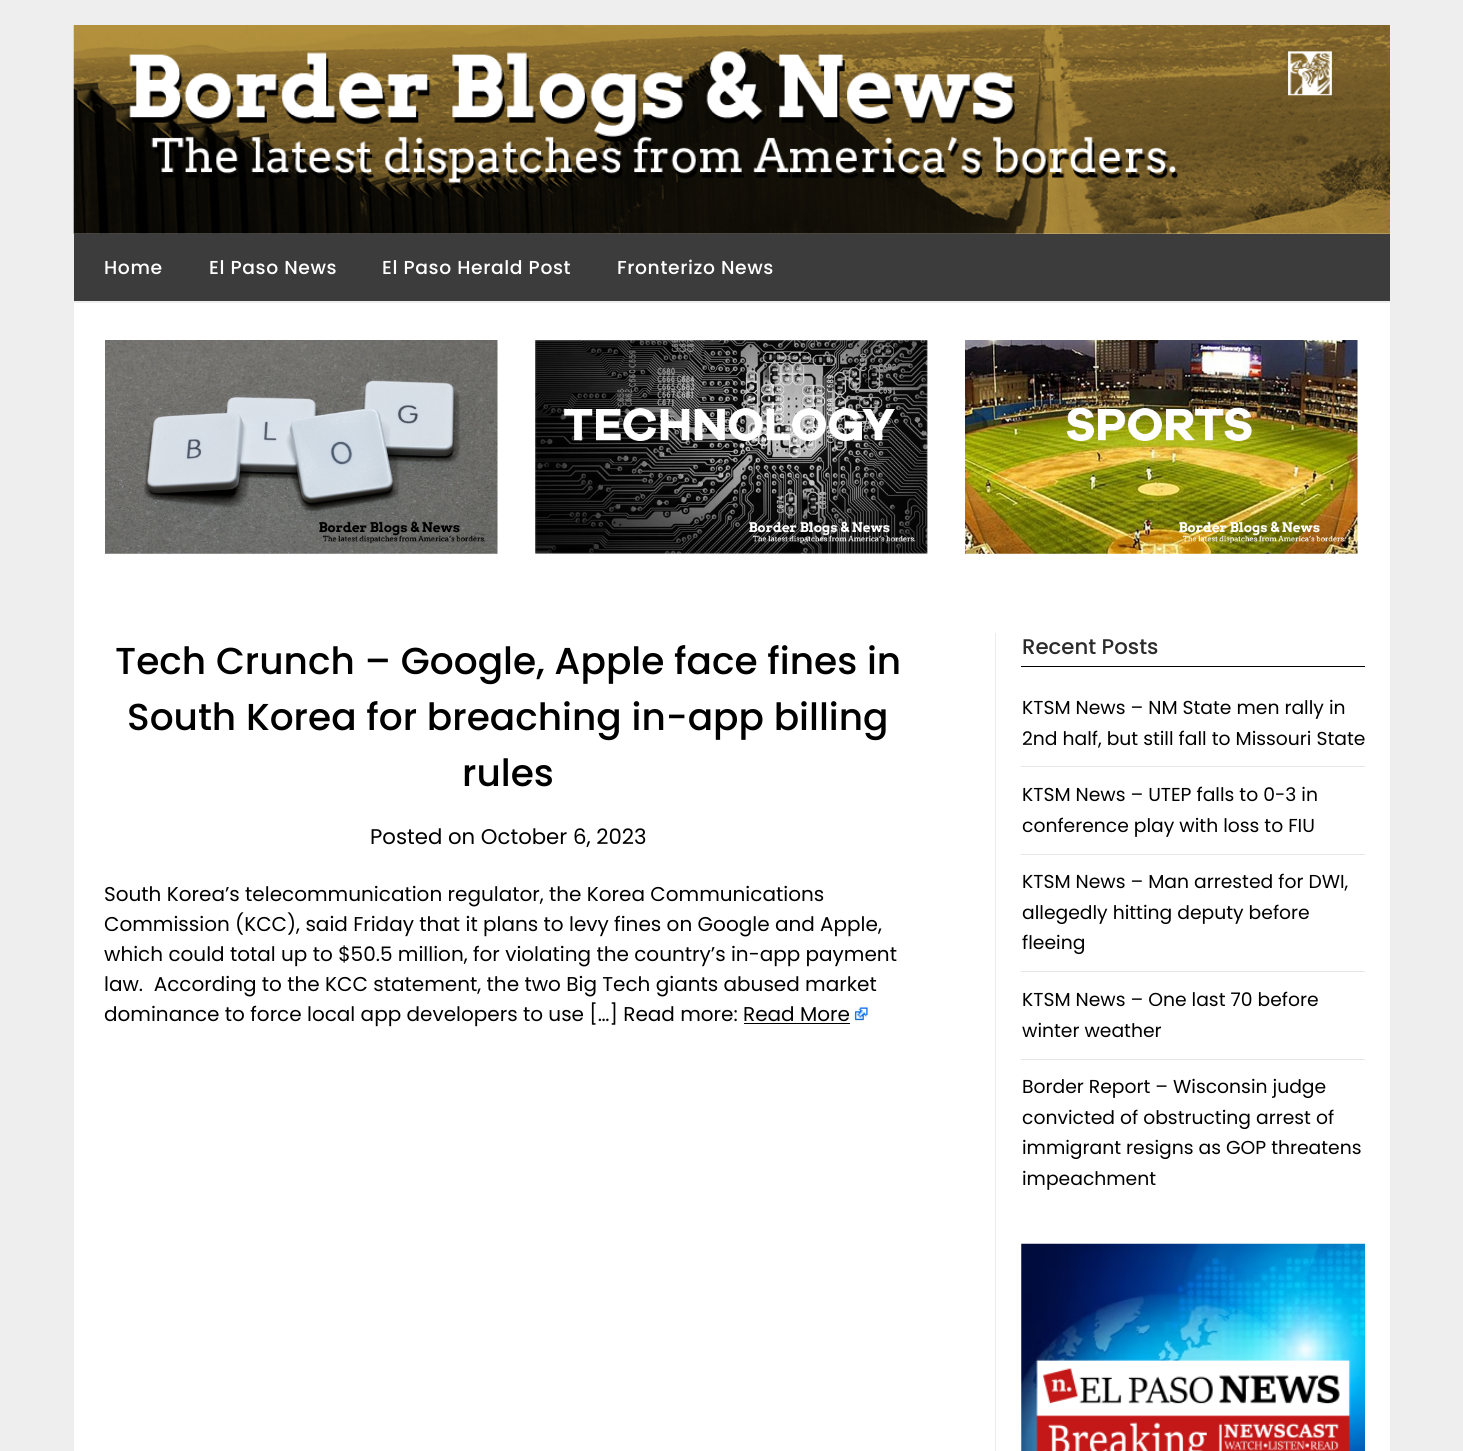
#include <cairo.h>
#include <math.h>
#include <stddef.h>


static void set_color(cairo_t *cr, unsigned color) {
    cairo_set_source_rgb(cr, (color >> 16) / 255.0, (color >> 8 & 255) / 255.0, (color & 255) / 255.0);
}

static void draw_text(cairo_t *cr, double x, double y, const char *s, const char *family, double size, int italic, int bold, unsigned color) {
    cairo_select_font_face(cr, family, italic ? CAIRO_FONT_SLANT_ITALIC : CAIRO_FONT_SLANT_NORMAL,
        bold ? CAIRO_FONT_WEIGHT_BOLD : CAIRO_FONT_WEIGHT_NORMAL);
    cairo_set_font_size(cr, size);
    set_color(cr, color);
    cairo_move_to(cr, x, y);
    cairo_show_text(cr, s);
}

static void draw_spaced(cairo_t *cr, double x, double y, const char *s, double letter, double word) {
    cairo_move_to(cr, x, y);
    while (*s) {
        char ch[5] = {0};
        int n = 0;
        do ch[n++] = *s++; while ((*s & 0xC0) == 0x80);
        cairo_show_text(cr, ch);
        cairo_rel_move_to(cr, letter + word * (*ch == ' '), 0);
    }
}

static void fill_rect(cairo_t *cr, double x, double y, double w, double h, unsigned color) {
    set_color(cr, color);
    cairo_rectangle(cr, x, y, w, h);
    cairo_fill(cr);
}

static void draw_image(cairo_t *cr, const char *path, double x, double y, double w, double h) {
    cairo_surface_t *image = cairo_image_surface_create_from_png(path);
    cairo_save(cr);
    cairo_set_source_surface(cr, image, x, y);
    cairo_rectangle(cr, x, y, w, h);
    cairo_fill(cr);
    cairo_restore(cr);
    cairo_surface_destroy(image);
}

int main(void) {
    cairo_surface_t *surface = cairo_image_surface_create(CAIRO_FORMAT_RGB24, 1463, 1451);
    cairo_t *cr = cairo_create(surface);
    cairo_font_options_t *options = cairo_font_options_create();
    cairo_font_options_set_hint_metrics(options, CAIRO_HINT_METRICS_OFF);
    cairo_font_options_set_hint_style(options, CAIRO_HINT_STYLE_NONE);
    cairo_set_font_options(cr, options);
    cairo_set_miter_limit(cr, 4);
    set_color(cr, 0xEEEEEE);
    cairo_paint(cr);
    draw_image(cr, "assets/img1.png", 73, 25, 1317, 209);
    fill_rect(cr, 74, 234, 1316, 67, 0x3C3C3C);
    cairo_select_font_face(cr, "Poppins Medium", CAIRO_FONT_SLANT_NORMAL, CAIRO_FONT_WEIGHT_NORMAL);
    cairo_set_font_size(cr, 18.75);
    set_color(cr, 0xFFFFFF);
    draw_spaced(cr, 104, 274, "Home", 0.6, 0);
    draw_spaced(cr, 209, 274, "El Paso News", 0.6, 0);
    draw_spaced(cr, 382, 274, "El Paso Herald Post", 0.6, 0);
    draw_spaced(cr, 617, 274, "Fronterizo News", 0.6, 0);
    fill_rect(cr, 74, 303, 1316, 1148, 0xFFFFFF);
    draw_image(cr, "assets/img2.png", 105, 340, 393, 214);
    draw_image(cr, "assets/img3.png", 535, 340, 393, 214);
    draw_image(cr, "assets/img4.png", 965, 340, 393, 214);
    draw_text(cr, 115, 674, "Tech Crunch – Google, Apple face fines in", "Poppins Medium", 37.5, 0, 0, 0x000000);
    draw_text(cr, 127, 730, "South Korea for breaching in-app billing", "Poppins Medium", 37.5, 0, 0, 0x000000);
    draw_text(cr, 462, 786, "rules", "Poppins Medium", 37.5, 0, 0, 0x000000);
    draw_text(cr, 370, 844, "Posted on October 6, 2023", "Poppins", 21.25, 0, 0, 0x000000);
    draw_text(cr, 104, 901, "South Korea’s telecommunication regulator, the Korea Communications", "Poppins", 20, 0, 0, 0x000000);
    draw_text(cr, 104, 931, "Commission (KCC), said Friday that it plans to levy fines on Google and Apple,", "Poppins", 20, 0, 0, 0x000000);
    draw_text(cr, 104, 961, "which could total up to $50.5 million, for violating the country’s in-app payment", "Poppins", 20, 0, 0, 0x000000);
    draw_text(cr, 104, 991, "law.  According to the KCC statement, the two Big Tech giants abused market", "Poppins", 20, 0, 0, 0x000000);
    draw_text(cr, 104, 1021, "dominance to force local app developers to use […] Read more: Read More", "Poppins", 20, 0, 0, 0x000000);
    draw_image(cr, "assets/img5.png", 854, 1007, 14, 14);
    fill_rect(cr, 744, 1023, 106, 1, 0x000000);
    fill_rect(cr, 995, 633, 1, 818, 0xECECEC);
    fill_rect(cr, 1021, 666, 344, 1, 0x000000);
    draw_text(cr, 1022, 654, "Recent Posts", "Poppins Medium", 21.25, 0, 0, 0x2B2B2B);
    fill_rect(cr, 1021, 766, 344, 1, 0xE6E6E6);
    draw_text(cr, 1022, 714, "KTSM News – NM State men rally in", "Poppins", 18.75, 0, 0, 0x000000);
    draw_text(cr, 1022, 745, "2nd half, but still fall to Missouri State", "Poppins", 18.75, 0, 0, 0x000000);
    fill_rect(cr, 1021, 854, 344, 1, 0xE6E6E6);
    draw_text(cr, 1022, 801, "KTSM News – UTEP falls to 0-3 in", "Poppins", 18.75, 0, 0, 0x000000);
    draw_text(cr, 1022, 832, "conference play with loss to FIU", "Poppins", 18.75, 0, 0, 0x000000);
    fill_rect(cr, 1021, 971, 344, 1, 0xE6E6E6);
    draw_text(cr, 1022, 888, "KTSM News – Man arrested for DWI,", "Poppins", 18.75, 0, 0, 0x000000);
    draw_text(cr, 1022, 919, "allegedly hitting deputy before", "Poppins", 18.75, 0, 0, 0x000000);
    draw_text(cr, 1022, 949, "fleeing", "Poppins", 18.75, 0, 0, 0x000000);
    fill_rect(cr, 1021, 1059, 344, 1, 0xE6E6E6);
    draw_text(cr, 1022, 1006, "KTSM News – One last 70 before", "Poppins", 18.75, 0, 0, 0x000000);
    draw_text(cr, 1022, 1037, "winter weather", "Poppins", 18.75, 0, 0, 0x000000);
    draw_text(cr, 1022, 1093, "Border Report – Wisconsin judge", "Poppins", 18.75, 0, 0, 0x000000);
    draw_text(cr, 1022, 1124, "convicted of obstructing arrest of", "Poppins", 18.75, 0, 0, 0x000000);
    draw_text(cr, 1022, 1154, "immigrant resigns as GOP threatens", "Poppins", 18.75, 0, 0, 0x000000);
    draw_text(cr, 1022, 1185, "impeachment", "Poppins", 18.75, 0, 0, 0x000000);
    draw_image(cr, "assets/img6.png", 1021, 1243, 344, 208);
    cairo_surface_write_to_png(surface, "output.png");
    cairo_font_options_destroy(options);
    cairo_destroy(cr);
    cairo_surface_destroy(surface);
    return 0;
}
